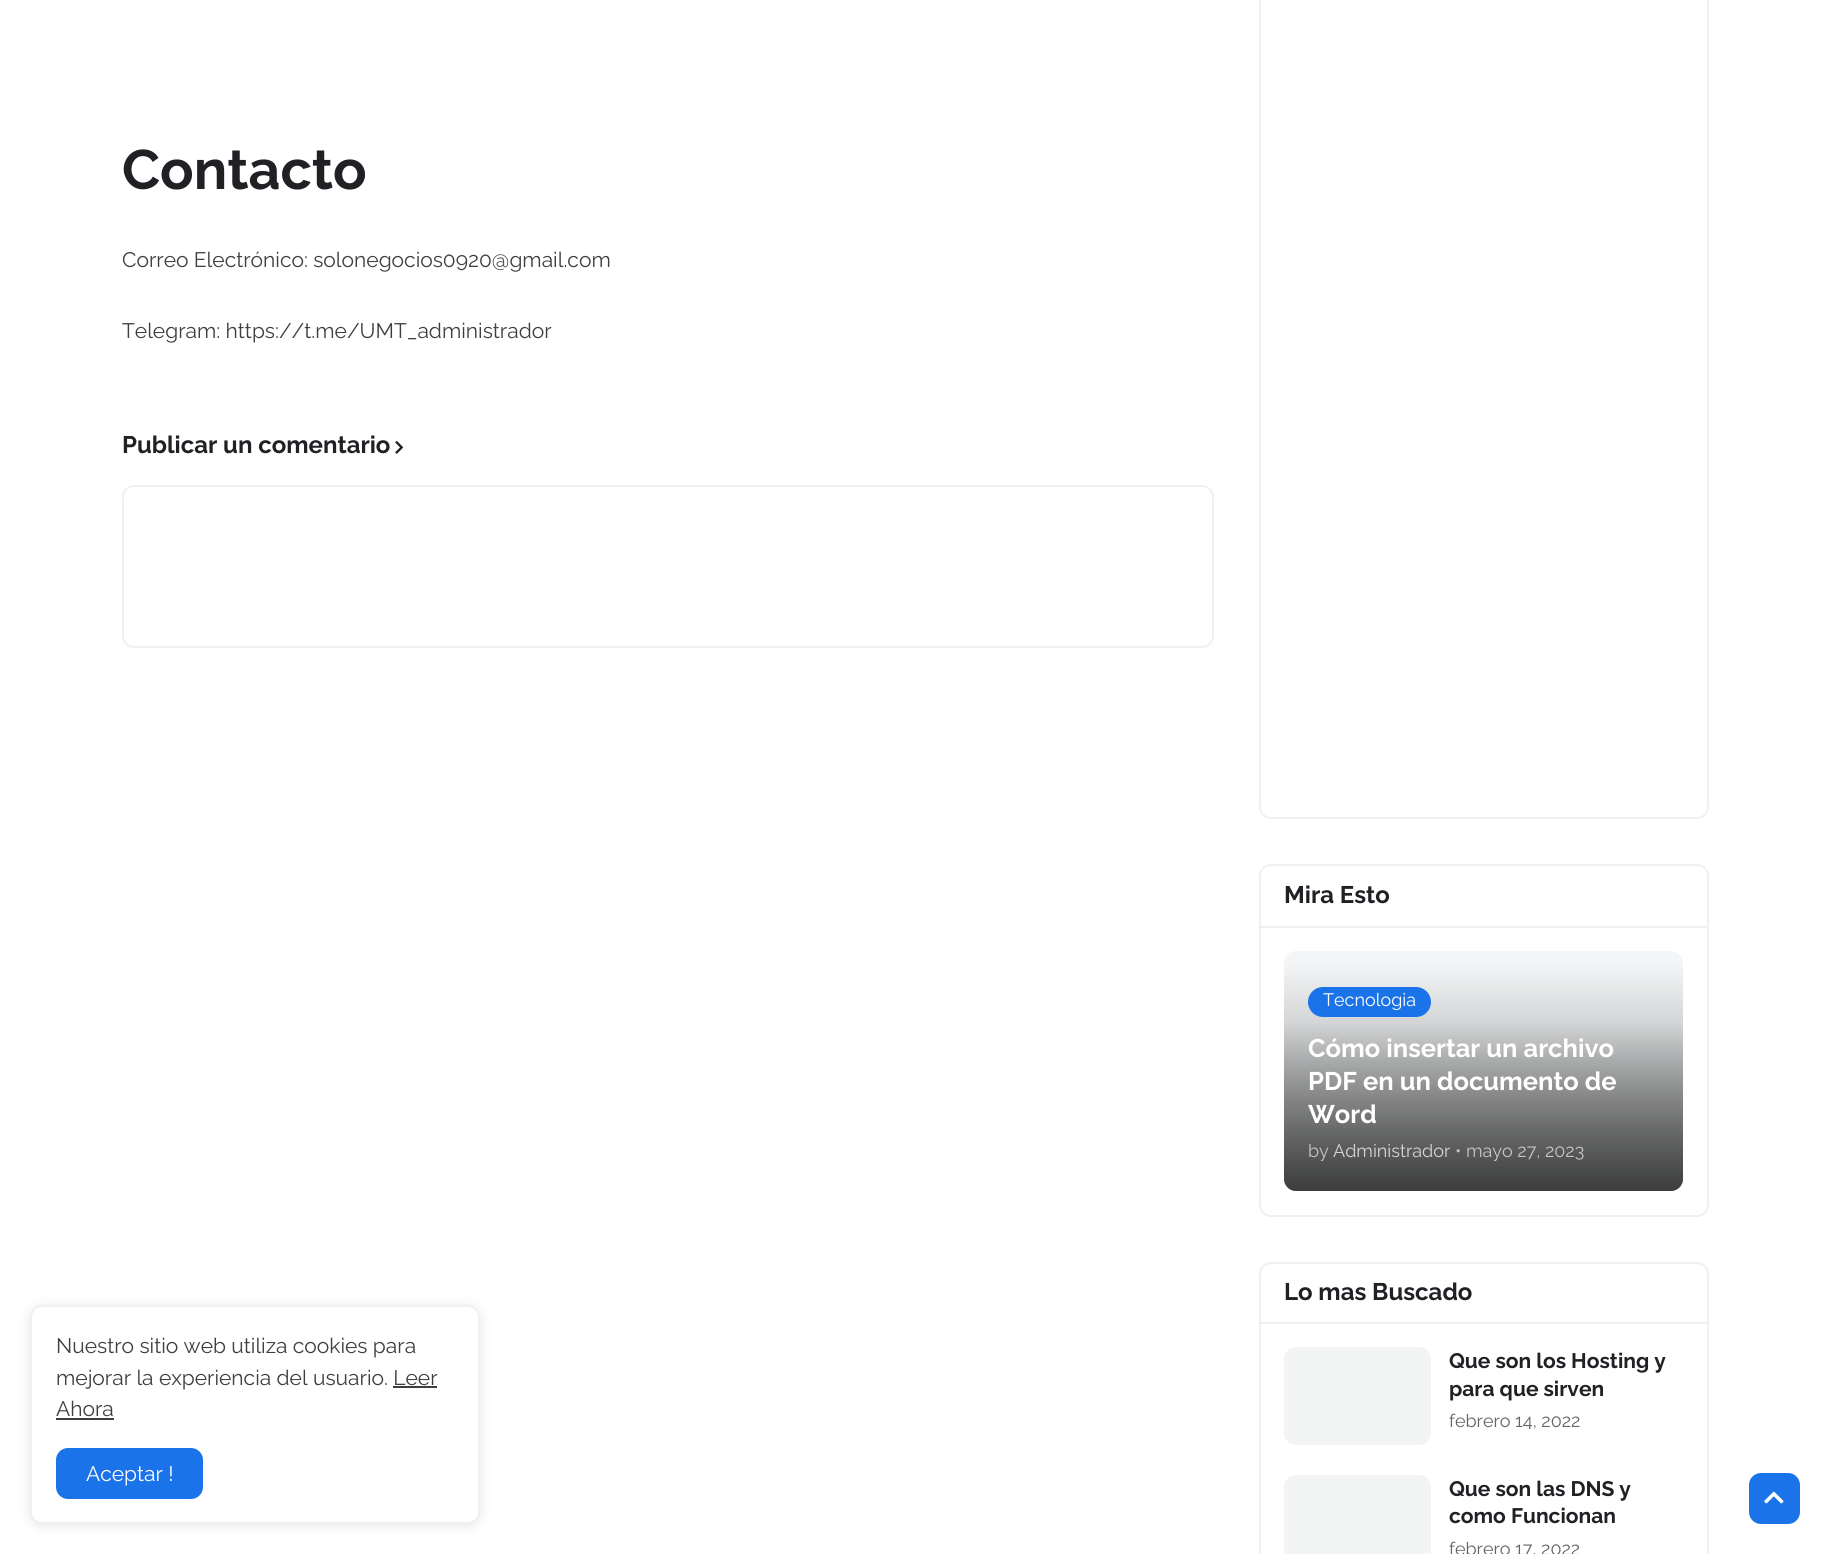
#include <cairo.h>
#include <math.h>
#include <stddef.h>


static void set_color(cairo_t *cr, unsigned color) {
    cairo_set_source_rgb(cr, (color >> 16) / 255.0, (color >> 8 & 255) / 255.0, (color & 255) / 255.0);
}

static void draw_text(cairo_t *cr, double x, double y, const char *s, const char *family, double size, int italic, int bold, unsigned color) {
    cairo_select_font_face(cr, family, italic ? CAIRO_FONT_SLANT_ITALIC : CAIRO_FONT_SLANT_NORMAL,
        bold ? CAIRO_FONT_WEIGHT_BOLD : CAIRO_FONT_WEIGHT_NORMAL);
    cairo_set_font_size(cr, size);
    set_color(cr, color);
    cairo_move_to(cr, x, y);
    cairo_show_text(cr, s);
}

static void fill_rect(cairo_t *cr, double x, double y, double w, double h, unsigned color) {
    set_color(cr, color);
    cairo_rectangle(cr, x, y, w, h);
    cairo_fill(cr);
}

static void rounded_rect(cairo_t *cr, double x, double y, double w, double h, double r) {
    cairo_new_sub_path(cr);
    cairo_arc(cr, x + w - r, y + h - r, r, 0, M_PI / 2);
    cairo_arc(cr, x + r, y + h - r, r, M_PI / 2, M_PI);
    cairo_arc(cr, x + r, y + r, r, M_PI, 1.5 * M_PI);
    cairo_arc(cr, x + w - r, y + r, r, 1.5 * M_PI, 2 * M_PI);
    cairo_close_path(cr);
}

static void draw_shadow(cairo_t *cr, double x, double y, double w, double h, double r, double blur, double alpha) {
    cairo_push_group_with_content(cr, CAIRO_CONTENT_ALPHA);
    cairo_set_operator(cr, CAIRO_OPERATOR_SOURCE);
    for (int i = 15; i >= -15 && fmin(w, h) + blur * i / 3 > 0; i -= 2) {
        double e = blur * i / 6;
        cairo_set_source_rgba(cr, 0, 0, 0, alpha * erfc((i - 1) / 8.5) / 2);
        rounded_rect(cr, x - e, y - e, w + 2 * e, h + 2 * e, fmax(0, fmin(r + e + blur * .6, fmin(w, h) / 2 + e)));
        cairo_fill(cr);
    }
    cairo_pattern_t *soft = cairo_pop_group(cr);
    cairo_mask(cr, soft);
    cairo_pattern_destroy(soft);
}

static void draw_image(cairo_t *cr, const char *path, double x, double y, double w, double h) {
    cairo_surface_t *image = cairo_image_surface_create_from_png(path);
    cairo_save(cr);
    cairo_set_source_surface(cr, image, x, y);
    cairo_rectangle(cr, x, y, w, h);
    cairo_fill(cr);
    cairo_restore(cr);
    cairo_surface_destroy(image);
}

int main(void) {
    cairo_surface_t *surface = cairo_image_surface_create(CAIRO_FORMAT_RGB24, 1829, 1554);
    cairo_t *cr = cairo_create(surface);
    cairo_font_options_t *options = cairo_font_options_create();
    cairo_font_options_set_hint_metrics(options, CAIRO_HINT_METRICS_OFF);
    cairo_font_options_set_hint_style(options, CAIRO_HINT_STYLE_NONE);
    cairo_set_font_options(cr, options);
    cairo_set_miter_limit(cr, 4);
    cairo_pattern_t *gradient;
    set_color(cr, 0xFFFFFF);
    cairo_paint(cr);
    draw_text(cr, 122, 189, "Contacto", "Raleway", 55.5, 0, 1, 0x202124);
    draw_text(cr, 122, 267, "Correo Electrónico: solonegocios0920@gmail.com", "Raleway", 21, 0, 0, 0x3C4043);
    draw_text(cr, 122, 338, "Telegram: https://t.me/UMT_administrador", "Raleway", 21, 0, 0, 0x3C4043);
    draw_text(cr, 122, 453, "Publicar un comentario", "Raleway", 24, 0, 1, 0x202124);
    draw_image(cr, "assets/img1.png", 395, 441, 8, 13);
    rounded_rect(cr, 123, 486, 1090, 161, 11);
    set_color(cr, 0xF0F0F0);
    cairo_stroke(cr);
    rounded_rect(cr, 1260, -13, 448, 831, 11);
    cairo_stroke(cr);
    rounded_rect(cr, 1260, 865, 448, 351, 11);
    cairo_stroke(cr);
    cairo_set_source_rgba(cr, 0.608, 0.608, 0.608, 0.15);
    cairo_rectangle(cr, 1260, 926, 447, 2);
    cairo_fill(cr);
    draw_text(cr, 1284, 903, "Mira Esto", "Raleway", 24, 0, 1, 0x202124);
    set_color(cr, 0xF3F5F6);
    rounded_rect(cr, 1284, 951, 399, 240, 12);
    cairo_fill(cr);
    gradient = cairo_pattern_create_linear(1484, 951, 1484, 1191);
    cairo_pattern_add_color_stop_rgba(gradient, 0.3, 0, 0, 0, 0);
    cairo_pattern_add_color_stop_rgba(gradient, 1, 0, 0, 0, 0.5);
    cairo_set_source(cr, gradient);
    cairo_pattern_destroy(gradient);
    rounded_rect(cr, 1284, 951, 399, 240, 12);
    cairo_fill(cr);
    gradient = cairo_pattern_create_linear(1484, 963, 1484, 1191);
    cairo_pattern_add_color_stop_rgba(gradient, 0, 0, 0, 0, 0);
    cairo_pattern_add_color_stop_rgba(gradient, 1, 0, 0, 0, 0.5);
    cairo_set_source(cr, gradient);
    cairo_pattern_destroy(gradient);
    cairo_new_path(cr);
    cairo_move_to(cr, 1284, 963);
    cairo_line_to(cr, 1683, 963);
    cairo_line_to(cr, 1683, 1179);
    cairo_curve_to(cr, 1683, 1185.5, 1677.5, 1191, 1671, 1191);
    cairo_line_to(cr, 1296, 1191);
    cairo_curve_to(cr, 1289.5, 1191, 1284, 1185.5, 1284, 1179);
    cairo_close_path(cr);
    cairo_fill(cr);
    set_color(cr, 0x1A73E8);
    rounded_rect(cr, 1308, 987, 123, 30, 15);
    cairo_fill(cr);
    draw_text(cr, 1323, 1006, "Tecnologia", "Raleway", 18, 0, 0, 0xFFFFFF);
    draw_text(cr, 1308, 1057, "Cómo insertar un archivo", "Raleway", 25.5, 0, 1, 0xFFFFFF);
    draw_text(cr, 1308, 1090, "PDF en un documento de", "Raleway", 25.5, 0, 1, 0xFFFFFF);
    draw_text(cr, 1308, 1123, "Word", "Raleway", 25.5, 0, 1, 0xFFFFFF);
    draw_text(cr, 1308, 1157, "by", "Raleway", 18, 0, 0, 0xC5C5C5);
    draw_text(cr, 1333, 1157, "Administrador", "Raleway", 18, 0, 0, 0xD5D5D5);
    draw_text(cr, 1455, 1157, "• mayo 27, 2023", "Raleway", 18, 0, 0, 0xC5C5C5);
    rounded_rect(cr, 1260, 1263, 448, 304, 11);
    set_color(cr, 0xF0F0F0);
    cairo_stroke(cr);
    cairo_set_source_rgba(cr, 0.608, 0.608, 0.608, 0.15);
    cairo_rectangle(cr, 1260, 1322, 447, 2);
    cairo_fill(cr);
    draw_text(cr, 1284, 1300, "Lo mas Buscado", "Raleway", 24, 0, 1, 0x202124);
    set_color(cr, 0xF3F5F5);
    rounded_rect(cr, 1284, 1347, 147, 98, 12);
    cairo_fill(cr);
    draw_text(cr, 1449, 1368, "Que son los Hosting y", "Raleway", 21, 0, 1, 0x202124);
    draw_text(cr, 1449, 1396, "para que sirven", "Raleway", 21, 0, 1, 0x202124);
    draw_text(cr, 1449, 1427, "febrero 14, 2022", "Raleway", 18, 0, 0, 0x636466);
    set_color(cr, 0xF3F5F5);
    rounded_rect(cr, 1284, 1475, 147, 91, 12);
    cairo_fill(cr);
    draw_text(cr, 1449, 1496, "Que son las DNS y", "Raleway", 21, 0, 1, 0x202124);
    draw_text(cr, 1449, 1523, "como Funcionan", "Raleway", 21, 0, 1, 0x202124);
    draw_text(cr, 1449, 1555, "febrero 17, 2022", "Raleway", 18, 0, 0, 0x636466);
    set_color(cr, 0x000000);
    draw_shadow(cr, 30, 1307, 450, 219, 12, 6, 0.1);
    set_color(cr, 0xFFFFFF);
    rounded_rect(cr, 31, 1306, 448, 217, 11);
    cairo_fill_preserve(cr);
    set_color(cr, 0xF0F0F0);
    cairo_stroke(cr);
    draw_text(cr, 56, 1353, "Nuestro sitio web utiliza cookies para", "Raleway", 21, 0, 0, 0x3C4043);
    draw_text(cr, 56, 1385, "mejorar la experiencia del usuario. Leer", "Raleway", 21, 0, 0, 0x3C4043);
    draw_text(cr, 56, 1416, "Ahora", "Raleway", 21, 0, 0, 0x3C4043);
    fill_rect(cr, 393, 1386, 44, 2, 0x3C4043);
    fill_rect(cr, 56, 1418, 58, 2, 0x3C4043);
    set_color(cr, 0x1A73E8);
    rounded_rect(cr, 56, 1448, 147, 51, 12);
    cairo_fill(cr);
    draw_text(cr, 86, 1481, "Aceptar !", "Raleway", 21, 0, 0, 0xFFFFFF);
    set_color(cr, 0x1A73E8);
    rounded_rect(cr, 1749, 1473, 51, 51, 12);
    cairo_fill(cr);
    draw_image(cr, "assets/img2.png", 1764, 1491, 20, 13);
    cairo_surface_write_to_png(surface, "output.png");
    cairo_font_options_destroy(options);
    cairo_destroy(cr);
    cairo_surface_destroy(surface);
    return 0;
}
